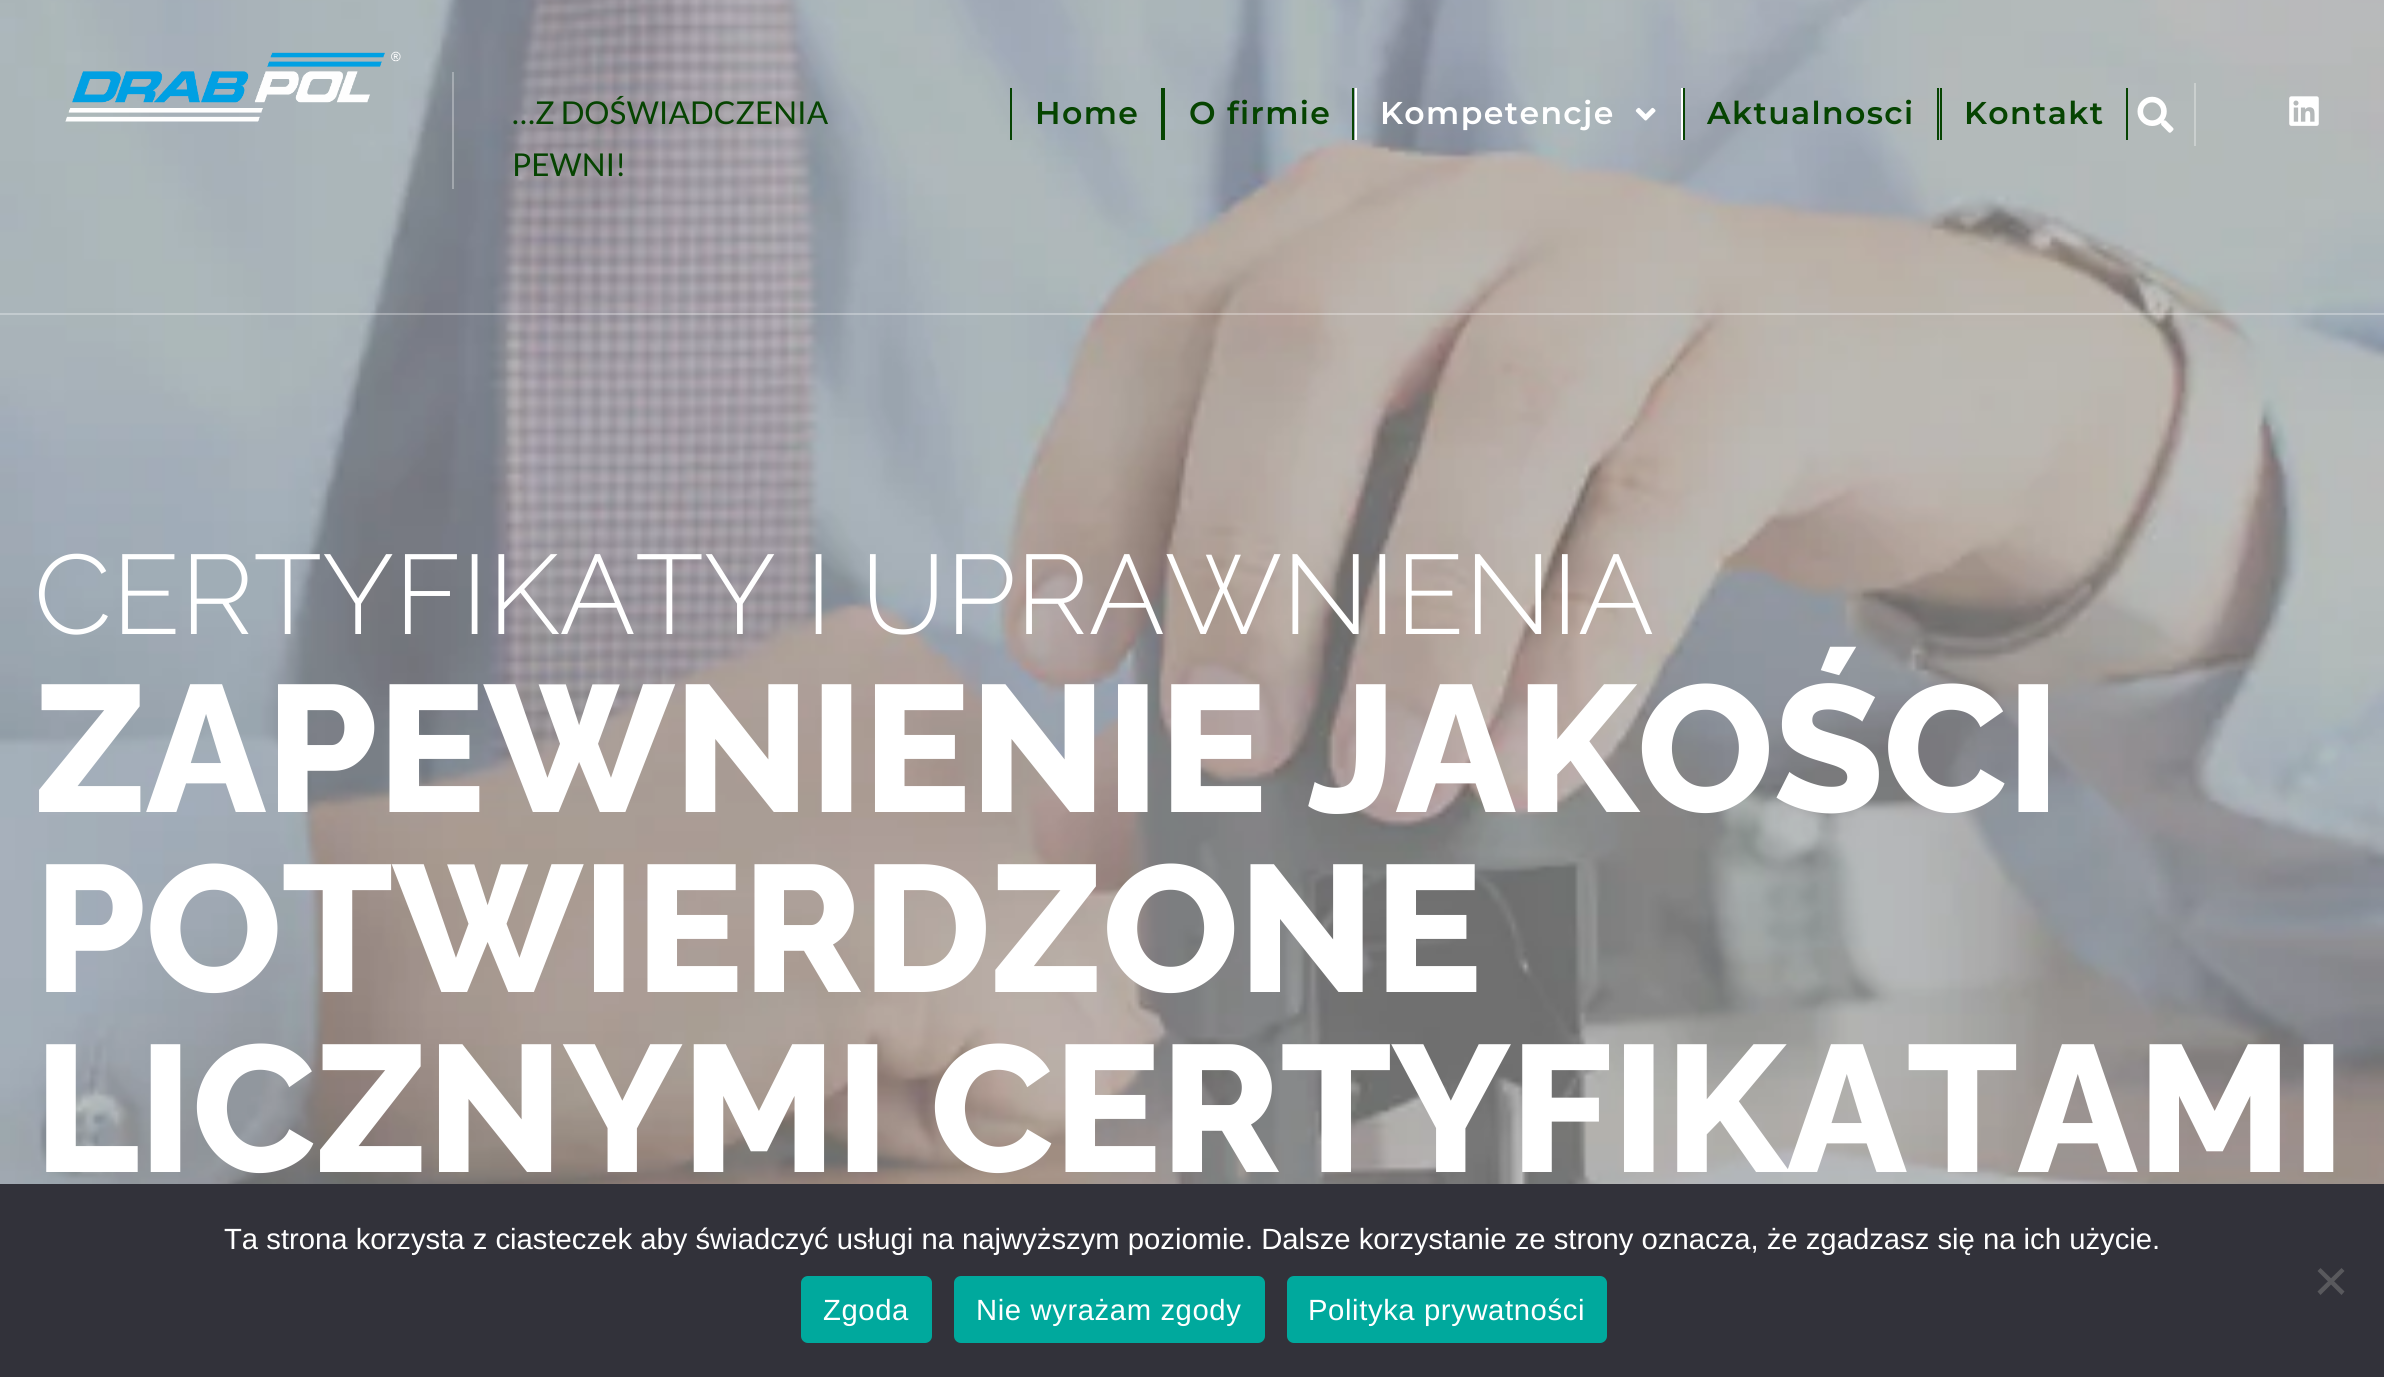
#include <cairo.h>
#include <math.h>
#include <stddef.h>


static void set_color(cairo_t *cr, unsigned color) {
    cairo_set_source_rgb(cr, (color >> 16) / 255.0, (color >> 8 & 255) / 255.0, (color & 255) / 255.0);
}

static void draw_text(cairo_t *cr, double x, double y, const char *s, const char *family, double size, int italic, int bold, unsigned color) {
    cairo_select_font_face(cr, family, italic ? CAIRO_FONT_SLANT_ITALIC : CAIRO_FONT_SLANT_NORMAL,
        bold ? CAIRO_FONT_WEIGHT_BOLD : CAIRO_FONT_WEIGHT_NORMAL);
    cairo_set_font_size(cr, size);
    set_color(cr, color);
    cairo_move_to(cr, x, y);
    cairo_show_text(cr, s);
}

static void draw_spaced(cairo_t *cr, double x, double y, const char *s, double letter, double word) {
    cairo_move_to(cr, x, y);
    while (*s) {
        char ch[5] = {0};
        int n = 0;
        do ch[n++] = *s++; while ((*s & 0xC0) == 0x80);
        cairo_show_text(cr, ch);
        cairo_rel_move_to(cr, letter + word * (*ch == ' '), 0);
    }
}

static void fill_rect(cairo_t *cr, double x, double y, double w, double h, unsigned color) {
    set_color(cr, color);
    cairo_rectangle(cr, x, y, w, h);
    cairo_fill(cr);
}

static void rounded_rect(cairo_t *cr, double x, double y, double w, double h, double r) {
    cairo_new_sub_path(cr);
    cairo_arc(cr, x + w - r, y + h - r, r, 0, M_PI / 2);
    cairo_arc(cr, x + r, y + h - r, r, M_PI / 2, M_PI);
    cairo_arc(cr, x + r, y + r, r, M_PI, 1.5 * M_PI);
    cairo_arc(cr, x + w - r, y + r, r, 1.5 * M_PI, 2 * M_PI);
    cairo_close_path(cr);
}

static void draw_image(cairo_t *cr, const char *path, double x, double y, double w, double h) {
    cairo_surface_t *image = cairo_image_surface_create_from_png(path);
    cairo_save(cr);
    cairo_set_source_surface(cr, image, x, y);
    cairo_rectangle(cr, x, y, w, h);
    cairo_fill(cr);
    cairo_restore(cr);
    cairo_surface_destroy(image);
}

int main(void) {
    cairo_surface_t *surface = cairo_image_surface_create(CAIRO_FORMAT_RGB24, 2384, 1377);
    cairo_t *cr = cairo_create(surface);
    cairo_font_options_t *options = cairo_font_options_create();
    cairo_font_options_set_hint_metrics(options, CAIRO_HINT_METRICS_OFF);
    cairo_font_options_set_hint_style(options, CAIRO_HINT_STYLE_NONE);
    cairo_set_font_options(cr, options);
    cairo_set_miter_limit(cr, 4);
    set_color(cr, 0xFFFFFF);
    cairo_paint(cr);
    draw_image(cr, "assets/img5.png", 0, 0, 2384, 1184);
    cairo_set_source_rgba(cr, 1, 1, 1, 0.3);
    cairo_rectangle(cr, 0, 313, 2384, 2);
    cairo_fill(cr);
    draw_image(cr, "assets/img1.png", 65, 51, 336, 71);
    cairo_rectangle(cr, 452, 72, 2, 117);
    cairo_fill(cr);
    draw_text(cr, 512, 124, "…Z DOŚWIADCZENIA", "Lato", 31.5, 0, 0, 0x064401);
    draw_text(cr, 512, 176, "PEWNI!", "Lato", 31.5, 0, 0, 0x064401);
    fill_rect(cr, 1161, 88, 4, 52, 0x064401);
    fill_rect(cr, 1010, 88, 2, 52, 0x064401);
    cairo_select_font_face(cr, "Montserrat SemiBold", CAIRO_FONT_SLANT_NORMAL, CAIRO_FONT_WEIGHT_NORMAL);
    draw_spaced(cr, 1035, 124, "Home", 1.4, 0);
    fill_rect(cr, 1352, 88, 2, 52, 0x064401);
    draw_spaced(cr, 1189, 124, "O firmie", 1.4, 0);
    fill_rect(cr, 1681, 88, 2, 52, 0xFFFFFF);
    fill_rect(cr, 1355, 88, 2, 52, 0xFFFFFF);
    draw_spaced(cr, 1380, 124, "Kompetencje", 1.4, 0);
    draw_image(cr, "assets/img2.png", 1635, 107, 21, 14);
    fill_rect(cr, 1937, 88, 2, 52, 0x064401);
    fill_rect(cr, 1683, 88, 2, 52, 0x064401);
    draw_spaced(cr, 1707, 124, "Aktualnosci", 1.4, 0);
    fill_rect(cr, 2126, 88, 2, 52, 0x064401);
    fill_rect(cr, 1940, 88, 2, 52, 0x064401);
    draw_spaced(cr, 1964, 124, "Kontakt", 1.4, 0);
    fill_rect(cr, 2194, 83, 2, 63, 0xCACFCE);
    draw_image(cr, "assets/img3.png", 2137, 96, 37, 37);
    draw_image(cr, "assets/img4.png", 2289, 96, 30, 30);
    draw_text(cr, 34, 634, "CERTYFIKATY I UPRAWNIENIA", "Raleway Light", 112.5, 0, 0, 0xFFFFFF);
    cairo_select_font_face(cr, "Raleway ExtraBold", CAIRO_FONT_SLANT_NORMAL, CAIRO_FONT_WEIGHT_NORMAL);
    cairo_set_font_size(cr, 180);
    draw_spaced(cr, 34, 812, "ZAPEWNIENIE JAKOŚCI", -0.7, 0);
    draw_spaced(cr, 34, 992, "POTWIERDZONE", -0.7, 0);
    draw_spaced(cr, 34, 1172, "LICZNYMI CERTYFIKATAMI", -0.7, 0);
    fill_rect(cr, 0, 1184, 2384, 193, 0x32323A);
    draw_text(cr, 224, 1249, "Ta strona korzysta z ciasteczek aby świadczyć usługi na najwyższym poziomie. Dalsze korzystanie ze strony oznacza, że zgadzasz się na ich użycie.", "Liberation Sans", 29.25, 0, 0, 0xFFFFFF);
    set_color(cr, 0x59595D);
    cairo_new_path(cr);
    cairo_move_to(cr, 2341.5, 1268);
    cairo_line_to(cr, 2344.5, 1271);
    cairo_line_to(cr, 2320.5, 1295);
    cairo_line_to(cr, 2317.5, 1291.5);
    cairo_close_path(cr);
    cairo_fill(cr);
    cairo_new_path(cr);
    cairo_move_to(cr, 2317.5, 1271);
    cairo_line_to(cr, 2320.5, 1268);
    cairo_line_to(cr, 2344.5, 1291.5);
    cairo_line_to(cr, 2341.5, 1295);
    cairo_close_path(cr);
    cairo_fill(cr);
    set_color(cr, 0x00A99D);
    rounded_rect(cr, 801, 1276, 131, 67, 7);
    cairo_fill(cr);
    set_color(cr, 0xFFFFFF);
    draw_spaced(cr, 823, 1320, "Zgoda", 0.6, 0);
    set_color(cr, 0x00A99D);
    rounded_rect(cr, 954, 1276, 311, 67, 7);
    cairo_fill(cr);
    set_color(cr, 0xFFFFFF);
    draw_spaced(cr, 976, 1320, "Nie wyrażam zgody", 0.6, 0);
    set_color(cr, 0x00A99D);
    rounded_rect(cr, 1287, 1276, 320, 67, 7);
    cairo_fill(cr);
    set_color(cr, 0xFFFFFF);
    draw_spaced(cr, 1308, 1320, "Polityka prywatności", 0.6, 0);
    cairo_surface_write_to_png(surface, "output.png");
    cairo_font_options_destroy(options);
    cairo_destroy(cr);
    cairo_surface_destroy(surface);
    return 0;
}
